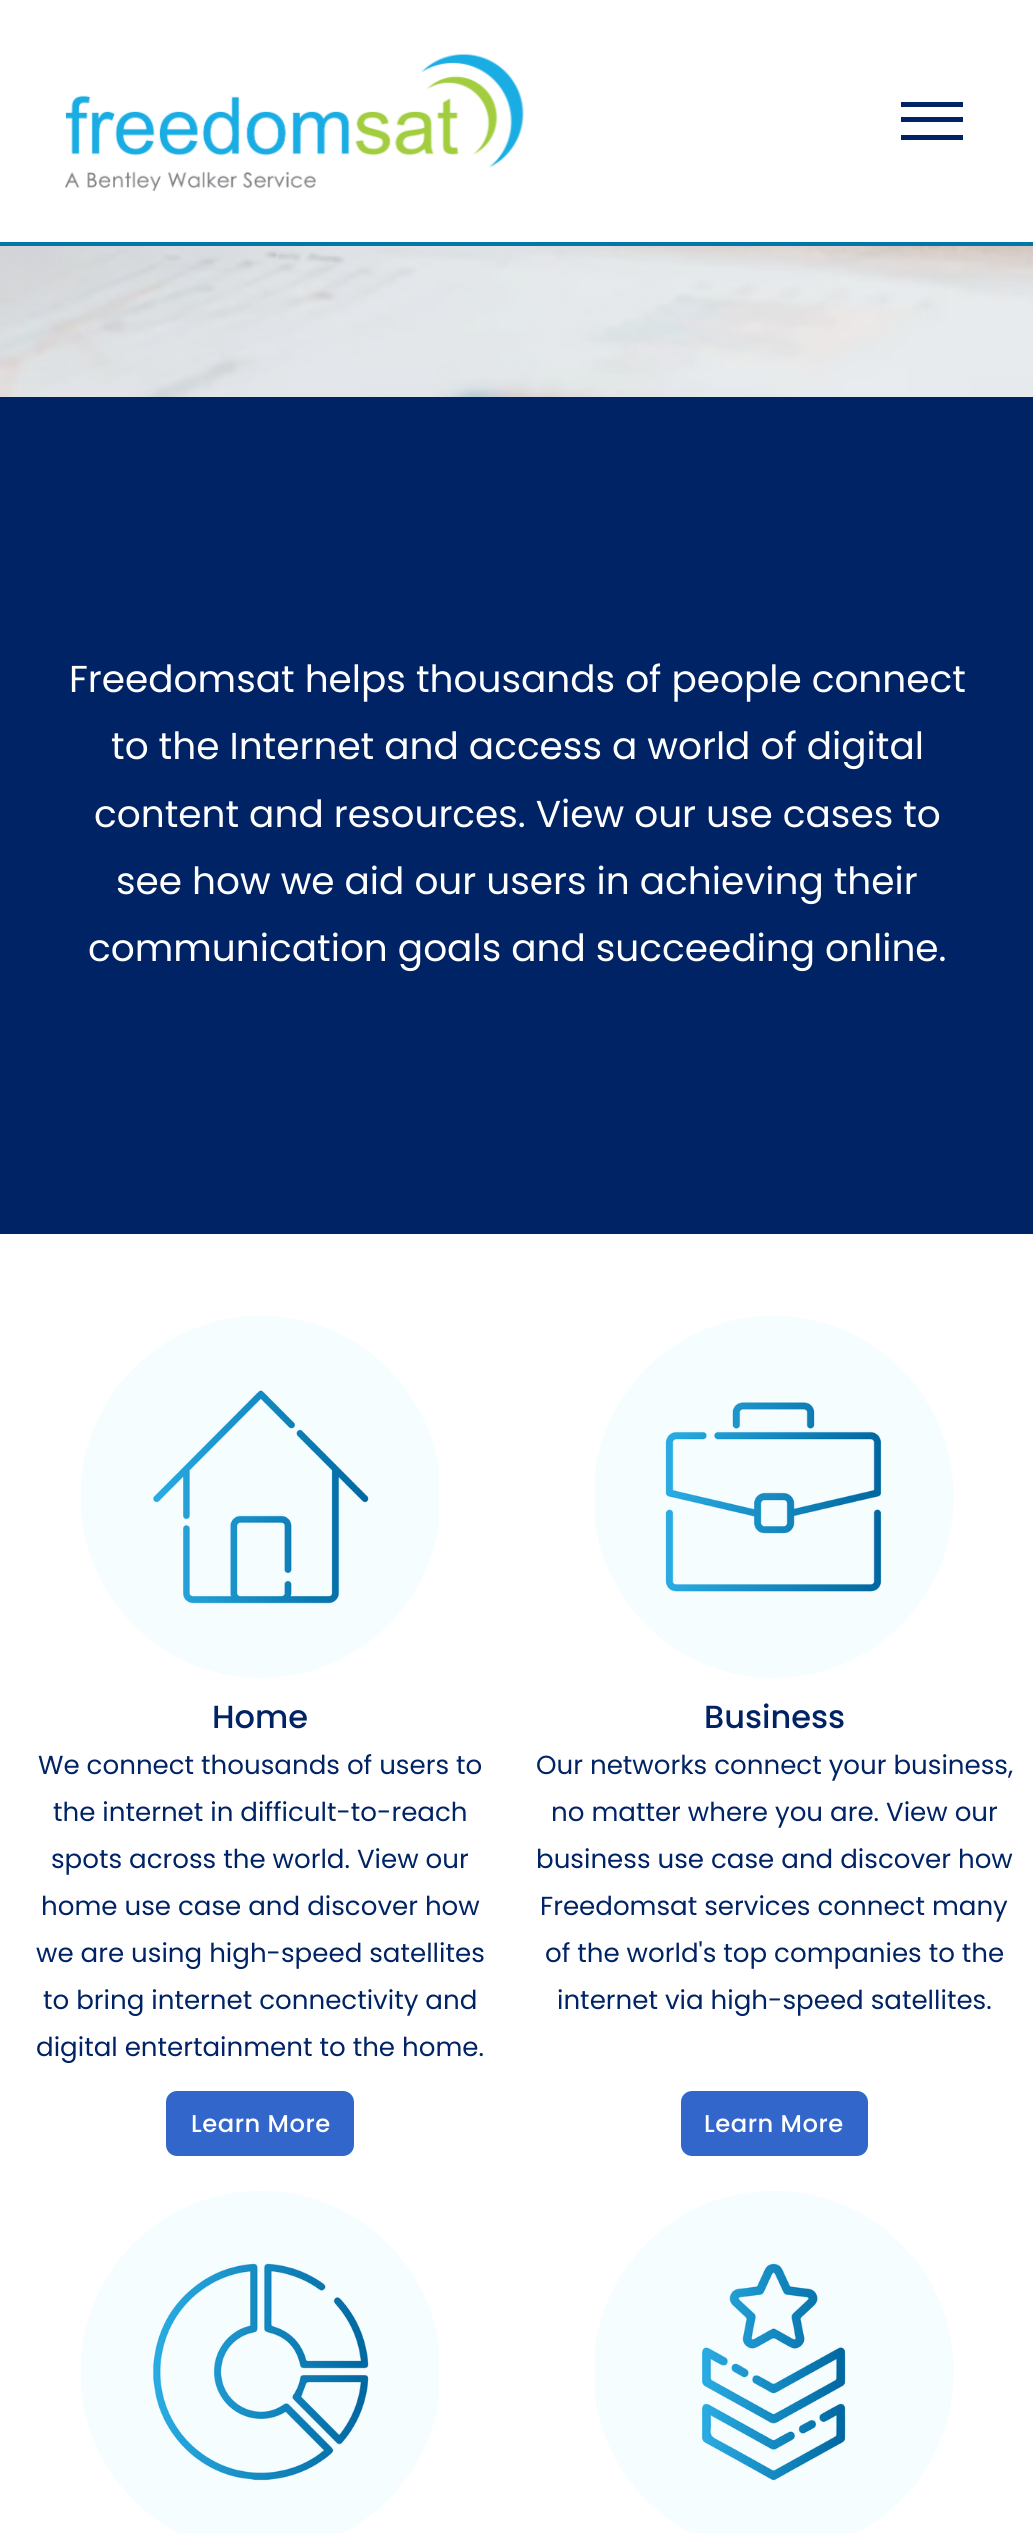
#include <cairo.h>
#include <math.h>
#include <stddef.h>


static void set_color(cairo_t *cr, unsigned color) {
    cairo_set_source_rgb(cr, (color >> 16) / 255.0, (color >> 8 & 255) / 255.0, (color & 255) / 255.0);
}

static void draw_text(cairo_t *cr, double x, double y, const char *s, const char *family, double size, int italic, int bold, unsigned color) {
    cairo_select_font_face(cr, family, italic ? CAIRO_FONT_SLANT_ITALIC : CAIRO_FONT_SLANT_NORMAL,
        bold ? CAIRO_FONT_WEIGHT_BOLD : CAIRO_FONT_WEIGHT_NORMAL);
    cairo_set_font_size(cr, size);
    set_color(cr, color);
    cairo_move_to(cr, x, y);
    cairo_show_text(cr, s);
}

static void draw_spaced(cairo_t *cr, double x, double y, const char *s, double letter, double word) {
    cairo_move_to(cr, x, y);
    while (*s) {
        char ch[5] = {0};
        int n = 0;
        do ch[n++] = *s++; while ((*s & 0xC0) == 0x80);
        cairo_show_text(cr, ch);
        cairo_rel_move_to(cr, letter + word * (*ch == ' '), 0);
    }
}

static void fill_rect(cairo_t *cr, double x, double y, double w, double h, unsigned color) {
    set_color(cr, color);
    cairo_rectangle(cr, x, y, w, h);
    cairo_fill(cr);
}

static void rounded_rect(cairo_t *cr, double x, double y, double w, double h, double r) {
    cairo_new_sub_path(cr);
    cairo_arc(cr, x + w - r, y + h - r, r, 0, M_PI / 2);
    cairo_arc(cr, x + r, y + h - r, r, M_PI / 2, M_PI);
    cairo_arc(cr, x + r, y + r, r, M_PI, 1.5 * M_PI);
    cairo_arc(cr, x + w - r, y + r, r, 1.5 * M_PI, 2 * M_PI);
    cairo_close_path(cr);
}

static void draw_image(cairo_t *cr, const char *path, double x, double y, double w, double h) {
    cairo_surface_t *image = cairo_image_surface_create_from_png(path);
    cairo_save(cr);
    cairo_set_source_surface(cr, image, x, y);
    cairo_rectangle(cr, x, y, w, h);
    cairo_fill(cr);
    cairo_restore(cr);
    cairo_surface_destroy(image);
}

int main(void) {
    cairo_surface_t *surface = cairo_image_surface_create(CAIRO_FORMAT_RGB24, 1033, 2533);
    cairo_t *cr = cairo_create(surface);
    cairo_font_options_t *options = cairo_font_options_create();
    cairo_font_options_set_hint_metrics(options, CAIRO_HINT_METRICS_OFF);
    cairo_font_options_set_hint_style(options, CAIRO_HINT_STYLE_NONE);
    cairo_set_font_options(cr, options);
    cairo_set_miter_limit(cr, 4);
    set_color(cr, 0xFFFFFF);
    cairo_paint(cr);
    fill_rect(cr, 0, 242, 1033, 4, 0x0076A9);
    draw_image(cr, "assets/img1.png", 65, 53, 459, 138);
    fill_rect(cr, 901, 102, 62, 5, 0x002366);
    fill_rect(cr, 901, 117, 62, 5, 0x002366);
    fill_rect(cr, 901, 135, 62, 5, 0x002366);
    draw_image(cr, "assets/img2.png", 0, 246, 1033, 151);
    fill_rect(cr, 0, 397, 1033, 837, 0x002366);
    draw_text(cr, 69, 692, "Freedomsat helps thousands of people connect", "Poppins", 37.45, 0, 0, 0xFFFFFF);
    draw_text(cr, 111, 759, "to the Internet and access a world of digital", "Poppins", 37.45, 0, 0, 0xFFFFFF);
    draw_text(cr, 94, 827, "content and resources. View our use cases to", "Poppins", 37.45, 0, 0, 0xFFFFFF);
    draw_text(cr, 116, 894, "see how we aid our users in achieving their", "Poppins", 37.45, 0, 0, 0xFFFFFF);
    draw_text(cr, 88, 961, "communication goals and succeeding online.", "Poppins", 37.45, 0, 0, 0xFFFFFF);
    draw_image(cr, "assets/img3.png", 81, 1316, 358, 362);
    draw_text(cr, 212, 1728, "Home", "Poppins Medium", 32, 0, 0, 0x002366);
    draw_text(cr, 38, 1774, "We connect thousands of users to", "Poppins", 26.1, 0, 0, 0x002366);
    draw_text(cr, 53, 1821, "the internet in difficult-to-reach", "Poppins", 26.1, 0, 0, 0x002366);
    draw_text(cr, 51, 1868, "spots across the world. View our", "Poppins", 26.1, 0, 0, 0x002366);
    draw_text(cr, 41, 1915, "home use case and discover how", "Poppins", 26.1, 0, 0, 0x002366);
    draw_text(cr, 36, 1962, "we are using high-speed satellites", "Poppins", 26.1, 0, 0, 0x002366);
    draw_text(cr, 43, 2009, "to bring internet connectivity and", "Poppins", 26.1, 0, 0, 0x002366);
    draw_text(cr, 36, 2056, "digital entertainment to the home.", "Poppins", 26.1, 0, 0, 0x002366);
    set_color(cr, 0x3366CB);
    rounded_rect(cr, 166, 2091, 188, 65, 11);
    cairo_fill(cr);
    cairo_select_font_face(cr, "Poppins Medium", CAIRO_FONT_SLANT_NORMAL, CAIRO_FONT_WEIGHT_NORMAL);
    cairo_set_font_size(cr, 24.25);
    set_color(cr, 0xFFFFFF);
    draw_spaced(cr, 191, 2132, "Learn More", 0.5, 0);
    draw_image(cr, "assets/img4.png", 595, 1316, 359, 362);
    draw_text(cr, 704, 1728, "Business", "Poppins Medium", 32, 0, 0, 0x002366);
    draw_text(cr, 536, 1774, "Our networks connect your business,", "Poppins", 26.1, 0, 0, 0x002366);
    draw_text(cr, 551, 1821, "no matter where you are. View our", "Poppins", 26.1, 0, 0, 0x002366);
    draw_text(cr, 536, 1868, "business use case and discover how", "Poppins", 26.1, 0, 0, 0x002366);
    draw_text(cr, 540, 1915, "Freedomsat services connect many", "Poppins", 26.1, 0, 0, 0x002366);
    draw_text(cr, 545, 1962, "of the world's top companies to the", "Poppins", 26.1, 0, 0, 0x002366);
    draw_text(cr, 557, 2009, "internet via high-speed satellites.", "Poppins", 26.1, 0, 0, 0x002366);
    set_color(cr, 0x3366CB);
    rounded_rect(cr, 681, 2091, 187, 65, 11);
    cairo_fill(cr);
    cairo_select_font_face(cr, "Poppins Medium", CAIRO_FONT_SLANT_NORMAL, CAIRO_FONT_WEIGHT_NORMAL);
    cairo_set_font_size(cr, 24.25);
    set_color(cr, 0xFFFFFF);
    draw_spaced(cr, 704, 2132, "Learn More", 0.5, 0);
    draw_image(cr, "assets/img5.png", 81, 2191, 358, 342);
    draw_image(cr, "assets/img6.png", 595, 2191, 359, 342);
    cairo_surface_write_to_png(surface, "output.png");
    cairo_font_options_destroy(options);
    cairo_destroy(cr);
    cairo_surface_destroy(surface);
    return 0;
}
